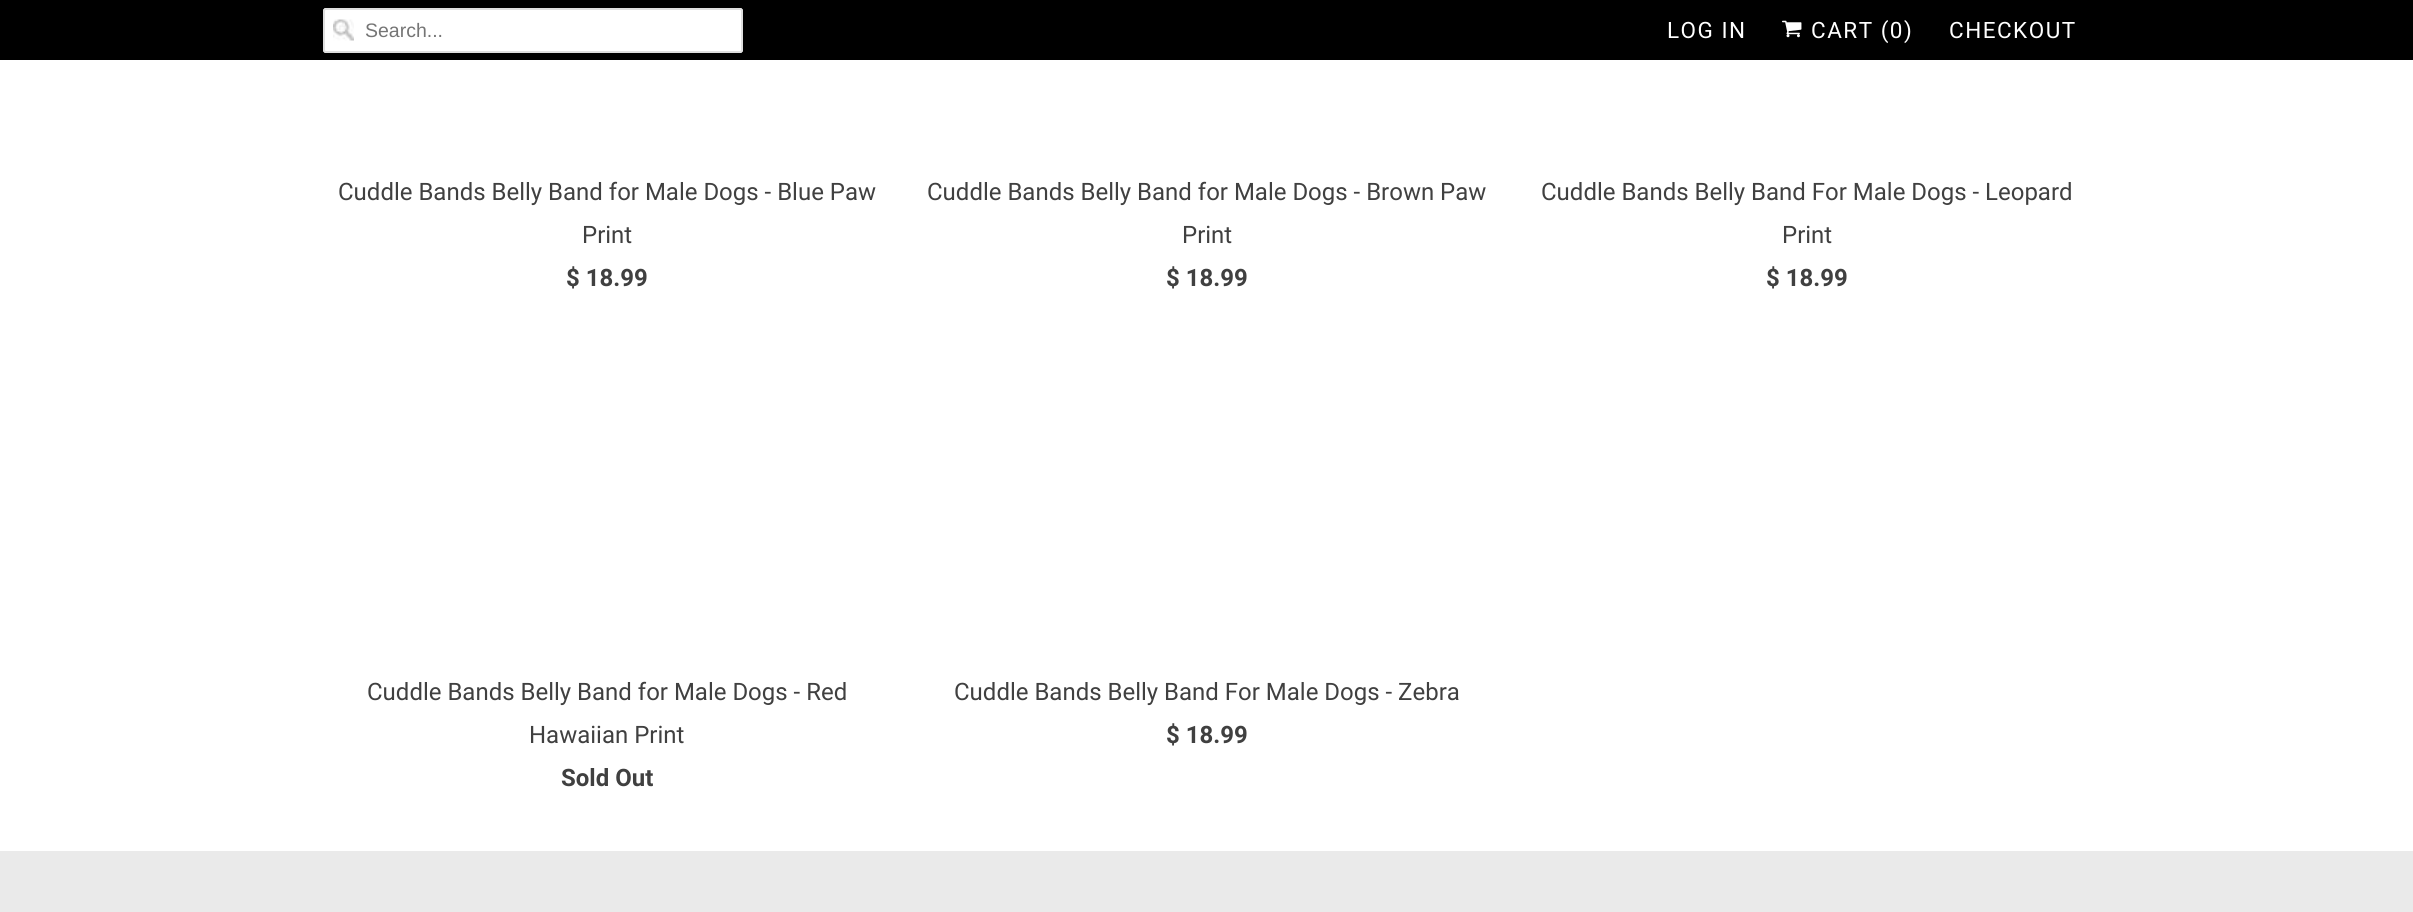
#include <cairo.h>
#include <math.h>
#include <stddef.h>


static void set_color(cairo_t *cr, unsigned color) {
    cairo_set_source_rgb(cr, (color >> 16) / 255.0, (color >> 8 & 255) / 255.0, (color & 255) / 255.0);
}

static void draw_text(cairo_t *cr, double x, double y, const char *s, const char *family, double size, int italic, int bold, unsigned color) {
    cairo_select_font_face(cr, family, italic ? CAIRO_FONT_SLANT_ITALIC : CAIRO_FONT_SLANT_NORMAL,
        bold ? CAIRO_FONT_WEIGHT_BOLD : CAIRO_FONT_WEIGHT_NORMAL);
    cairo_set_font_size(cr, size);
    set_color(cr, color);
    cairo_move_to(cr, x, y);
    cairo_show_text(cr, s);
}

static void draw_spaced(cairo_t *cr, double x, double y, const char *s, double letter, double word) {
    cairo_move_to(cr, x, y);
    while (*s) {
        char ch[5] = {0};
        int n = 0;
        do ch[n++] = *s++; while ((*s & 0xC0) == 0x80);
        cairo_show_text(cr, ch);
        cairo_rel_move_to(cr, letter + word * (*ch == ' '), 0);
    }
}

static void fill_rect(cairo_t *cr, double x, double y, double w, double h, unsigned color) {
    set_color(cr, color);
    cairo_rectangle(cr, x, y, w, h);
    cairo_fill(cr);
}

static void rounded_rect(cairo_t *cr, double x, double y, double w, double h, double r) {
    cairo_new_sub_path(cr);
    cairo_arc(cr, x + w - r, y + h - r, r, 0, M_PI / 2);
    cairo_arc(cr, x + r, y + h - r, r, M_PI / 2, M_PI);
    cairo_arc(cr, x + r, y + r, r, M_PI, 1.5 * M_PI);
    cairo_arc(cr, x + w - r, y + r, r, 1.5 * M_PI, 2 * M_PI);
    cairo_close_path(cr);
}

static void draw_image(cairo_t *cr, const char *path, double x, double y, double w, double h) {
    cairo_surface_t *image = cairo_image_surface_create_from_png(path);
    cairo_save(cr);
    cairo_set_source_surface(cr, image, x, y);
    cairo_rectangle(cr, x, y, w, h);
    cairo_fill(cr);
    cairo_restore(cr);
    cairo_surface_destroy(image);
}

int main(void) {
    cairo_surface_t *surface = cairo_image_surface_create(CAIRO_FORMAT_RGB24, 2413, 912);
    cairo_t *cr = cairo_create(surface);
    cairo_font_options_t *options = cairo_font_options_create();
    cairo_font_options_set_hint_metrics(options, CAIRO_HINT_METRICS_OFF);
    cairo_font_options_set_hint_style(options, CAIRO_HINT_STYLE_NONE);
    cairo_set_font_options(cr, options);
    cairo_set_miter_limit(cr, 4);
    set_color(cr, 0xFFFFFF);
    cairo_paint(cr);
    fill_rect(cr, 0, 0, 2413, 60, 0x000000);
    set_color(cr, 0xFFFFFF);
    rounded_rect(cr, 323, 8, 420, 45, 3);
    cairo_fill(cr);
    draw_image(cr, "assets/img1.png", 333, 19, 21, 22);
    rounded_rect(cr, 324, 9, 418, 43, 2);
    set_color(cr, 0xDFDFDF);
    cairo_stroke(cr);
    draw_text(cr, 365, 37, "Search...", "Liberation Sans", 19.5, 0, 0, 0x757575);
    cairo_select_font_face(cr, "Roboto", CAIRO_FONT_SLANT_NORMAL, CAIRO_FONT_WEIGHT_NORMAL);
    cairo_set_font_size(cr, 22.5);
    set_color(cr, 0xFFFFFF);
    draw_spaced(cr, 1667, 38, "LOG IN", 1.5, 0);
    draw_image(cr, "assets/img2.png", 1782, 20, 20, 18);
    draw_spaced(cr, 1811, 38, "CART (0)", 1.5, 0);
    draw_spaced(cr, 1949, 38, "CHECKOUT", 1.5, 0);
    draw_text(cr, 338, 200, "Cuddle Bands Belly Band for Male Dogs - Blue Paw", "Roboto", 24, 0, 0, 0x404040);
    draw_text(cr, 582, 243, "Print", "Roboto", 24, 0, 0, 0x404040);
    draw_text(cr, 566, 286, "$ 18.99", "Roboto", 24, 0, 1, 0x404040);
    draw_text(cr, 927, 200, "Cuddle Bands Belly Band for Male Dogs - Brown Paw", "Roboto", 24, 0, 0, 0x404040);
    draw_text(cr, 1182, 243, "Print", "Roboto", 24, 0, 0, 0x404040);
    draw_text(cr, 1166, 286, "$ 18.99", "Roboto", 24, 0, 1, 0x404040);
    draw_text(cr, 1541, 200, "Cuddle Bands Belly Band For Male Dogs - Leopard", "Roboto", 24, 0, 0, 0x404040);
    draw_text(cr, 1782, 243, "Print", "Roboto", 24, 0, 0, 0x404040);
    draw_text(cr, 1766, 286, "$ 18.99", "Roboto", 24, 0, 1, 0x404040);
    draw_text(cr, 367, 700, "Cuddle Bands Belly Band for Male Dogs - Red", "Roboto", 24, 0, 0, 0x404040);
    draw_text(cr, 529, 743, "Hawaiian Print", "Roboto", 24, 0, 0, 0x404040);
    draw_text(cr, 561, 786, "Sold Out", "Roboto", 24, 0, 1, 0x404040);
    draw_text(cr, 954, 700, "Cuddle Bands Belly Band For Male Dogs - Zebra", "Roboto", 24, 0, 0, 0x404040);
    draw_text(cr, 1166, 743, "$ 18.99", "Roboto", 24, 0, 1, 0x404040);
    fill_rect(cr, 0, 851, 2413, 61, 0xEAEAEA);
    cairo_surface_write_to_png(surface, "output.png");
    cairo_font_options_destroy(options);
    cairo_destroy(cr);
    cairo_surface_destroy(surface);
    return 0;
}
